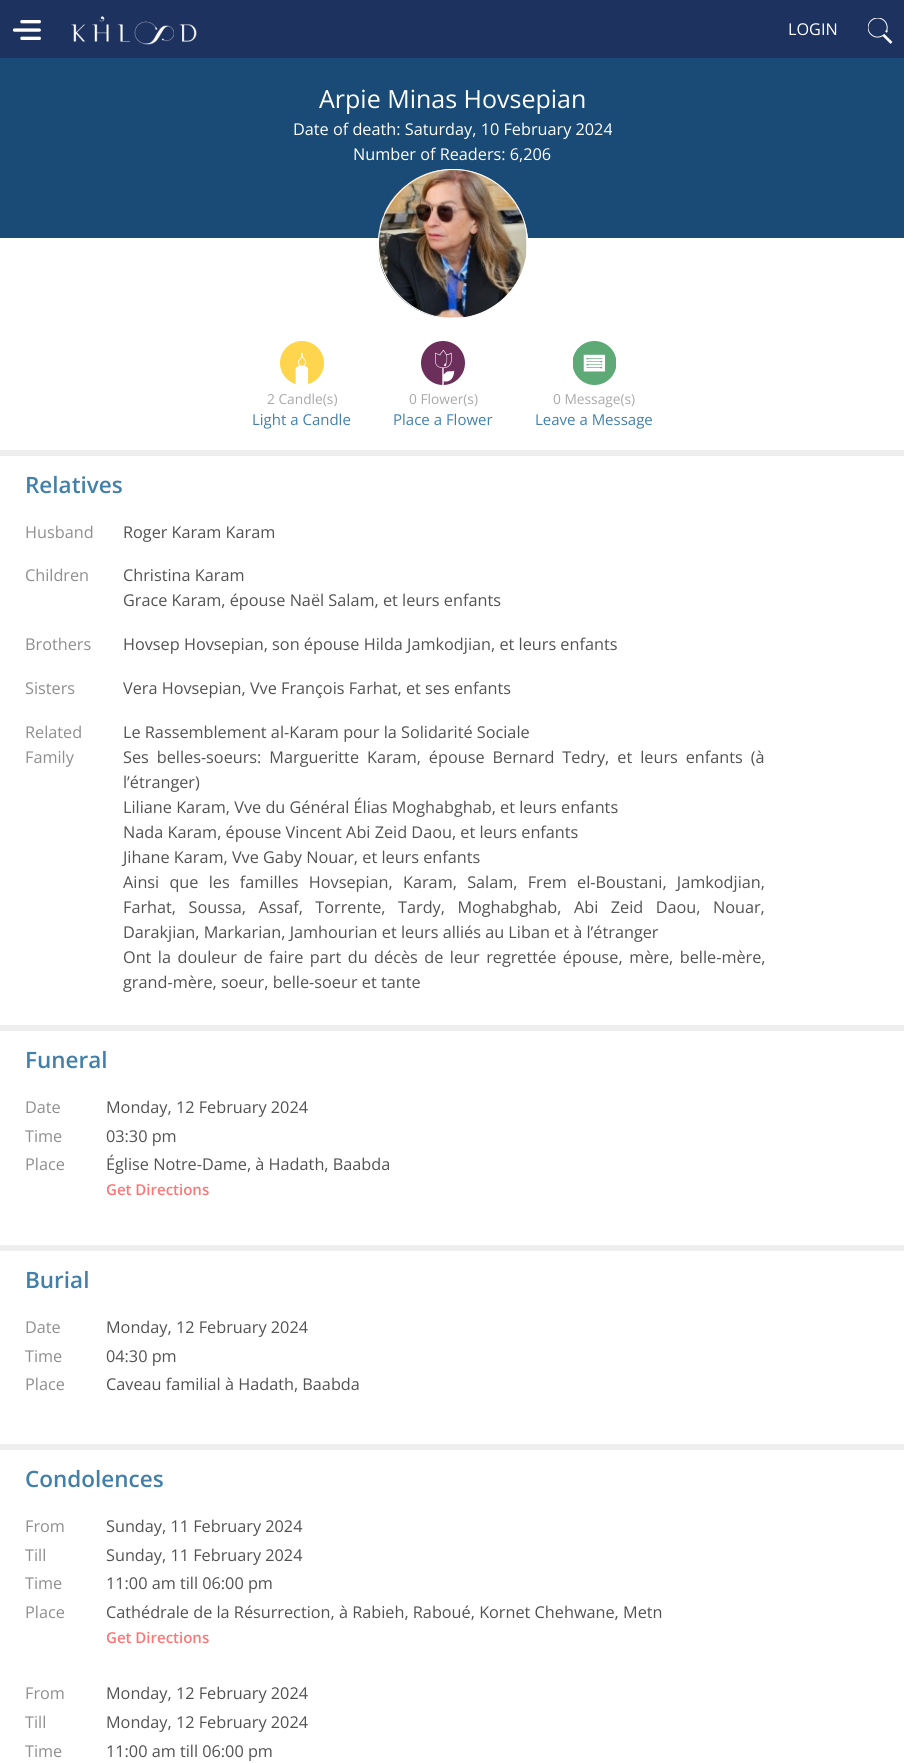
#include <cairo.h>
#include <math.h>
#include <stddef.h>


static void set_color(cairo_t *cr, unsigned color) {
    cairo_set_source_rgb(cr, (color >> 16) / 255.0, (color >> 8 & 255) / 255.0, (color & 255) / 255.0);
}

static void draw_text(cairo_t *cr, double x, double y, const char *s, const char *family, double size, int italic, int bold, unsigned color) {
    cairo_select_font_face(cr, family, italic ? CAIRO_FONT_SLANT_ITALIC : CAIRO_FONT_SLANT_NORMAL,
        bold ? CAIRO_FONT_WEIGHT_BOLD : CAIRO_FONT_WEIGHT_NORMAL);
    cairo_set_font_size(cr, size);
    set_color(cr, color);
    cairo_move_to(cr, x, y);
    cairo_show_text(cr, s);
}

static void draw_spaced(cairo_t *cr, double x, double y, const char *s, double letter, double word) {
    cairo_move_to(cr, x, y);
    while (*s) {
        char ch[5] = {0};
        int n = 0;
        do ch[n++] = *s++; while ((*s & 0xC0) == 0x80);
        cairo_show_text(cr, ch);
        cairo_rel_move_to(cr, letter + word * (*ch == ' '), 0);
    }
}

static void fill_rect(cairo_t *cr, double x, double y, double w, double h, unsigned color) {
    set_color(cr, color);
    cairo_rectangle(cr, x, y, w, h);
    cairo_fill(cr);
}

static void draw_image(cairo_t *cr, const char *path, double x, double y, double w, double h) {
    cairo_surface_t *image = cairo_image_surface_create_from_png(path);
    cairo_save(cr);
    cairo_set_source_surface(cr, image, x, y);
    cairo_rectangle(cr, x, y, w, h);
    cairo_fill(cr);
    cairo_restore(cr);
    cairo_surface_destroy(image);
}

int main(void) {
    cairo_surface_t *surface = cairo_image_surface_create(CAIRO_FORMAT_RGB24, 904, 1763);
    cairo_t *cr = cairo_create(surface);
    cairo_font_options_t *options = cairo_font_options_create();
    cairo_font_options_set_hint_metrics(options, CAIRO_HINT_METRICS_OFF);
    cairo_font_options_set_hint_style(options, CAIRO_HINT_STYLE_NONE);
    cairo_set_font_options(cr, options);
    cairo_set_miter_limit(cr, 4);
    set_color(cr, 0xFFFFFF);
    cairo_paint(cr);
    fill_rect(cr, 0, 0, 904, 58, 0x1E3260);
    draw_image(cr, "assets/img1.png", 13, 20, 28, 20);
    draw_image(cr, "assets/img2.png", 71, 16, 126, 29);
    draw_text(cr, 788, 35, "LOGIN", "Open Sans", 16.25, 0, 0, 0xFFFFFF);
    draw_image(cr, "assets/img3.png", 868, 18, 25, 26);
    fill_rect(cr, 0, 58, 904, 180, 0x194B76);
    draw_text(cr, 319, 108, "Arpie Minas Hovsepian", "Open Sans", 25, 0, 0, 0xFFFFFF);
    draw_text(cr, 293, 135, "Date of death: Saturday, 10 February 2024", "Open Sans", 16.25, 0, 0, 0xFFFFFF);
    draw_text(cr, 353, 160, "Number of Readers: 6,206", "Open Sans", 16.25, 0, 0, 0xFFFFFF);
    fill_rect(cr, 0, 450, 904, 6, 0xEEEEEE);
    draw_image(cr, "assets/img4.png", 280, 341, 44, 44);
    draw_text(cr, 267, 404, "2 Candle(s)", "Open Sans", 13.75, 0, 0, 0xA8A8A8);
    draw_text(cr, 252, 425, "Light a Candle", "Open Sans", 15, 0, 0, 0x4280AA);
    draw_image(cr, "assets/img5.png", 421, 341, 44, 44);
    draw_text(cr, 409, 404, "0 Flower(s)", "Open Sans", 13.75, 0, 0, 0xA8A8A8);
    draw_text(cr, 393, 425, "Place a Flower", "Open Sans", 15, 0, 0, 0x4280AA);
    draw_image(cr, "assets/img6.png", 573, 341, 43, 44);
    draw_text(cr, 553, 404, "0 Message(s)", "Open Sans", 13.75, 0, 0, 0xA8A8A8);
    draw_text(cr, 535, 425, "Leave a Message", "Open Sans", 15, 0, 0, 0x4280AA);
    set_color(cr, 0xFFFFFF);
    cairo_new_path(cr);
    cairo_arc(cr, 453, 244, 75, 0, 2 * M_PI);
    cairo_fill(cr);
    draw_image(cr, "assets/img7.png", 378, 170, 149, 148);
    cairo_arc(cr, 453, 244, 74.5, 0, 2 * M_PI);
    cairo_set_line_width(cr, 1);
    cairo_stroke(cr);
    fill_rect(cr, 0, 1025, 904, 6, 0xEEEEEE);
    draw_text(cr, 25, 493, "Relatives", "Open Sans SemiBold", 22.5, 0, 0, 0x4280AA);
    draw_text(cr, 25, 538, "Husband", "Open Sans", 16.25, 0, 0, 0x8E8E8E);
    draw_text(cr, 123, 538, "Roger Karam Karam", "Open Sans", 16.25, 0, 0, 0x525252);
    draw_text(cr, 25, 581, "Children", "Open Sans", 16.25, 0, 0, 0x8E8E8E);
    draw_text(cr, 123, 581, "Christina Karam", "Open Sans", 16.25, 0, 0, 0x525252);
    draw_text(cr, 123, 606, "Grace Karam, épouse Naël Salam, et leurs enfants", "Open Sans", 16.25, 0, 0, 0x525252);
    draw_text(cr, 25, 650, "Brothers", "Open Sans", 16.25, 0, 0, 0x8E8E8E);
    draw_text(cr, 123, 650, "Hovsep Hovsepian, son épouse Hilda Jamkodjian, et leurs enfants", "Open Sans", 16.25, 0, 0, 0x525252);
    draw_text(cr, 25, 694, "Sisters", "Open Sans", 16.25, 0, 0, 0x8E8E8E);
    draw_text(cr, 123, 694, "Vera Hovsepian, Vve François Farhat, et ses enfants", "Open Sans", 16.25, 0, 0, 0x525252);
    draw_text(cr, 25, 738, "Related", "Open Sans", 16.25, 0, 0, 0x8E8E8E);
    draw_text(cr, 25, 763, "Family", "Open Sans", 16.25, 0, 0, 0x8E8E8E);
    draw_text(cr, 123, 738, "Le Rassemblement al-Karam pour la Solidarité Sociale", "Open Sans", 16.25, 0, 0, 0x525252);
    draw_spaced(cr, 123, 763, "Ses belles-soeurs: Margueritte Karam, épouse Bernard Tedry, et leurs enfants (à", 0, 3.75);
    draw_text(cr, 123, 788, "l’étranger)", "Open Sans", 16.25, 0, 0, 0x525252);
    draw_text(cr, 123, 813, "Liliane Karam, Vve du Général Élias Moghabghab, et leurs enfants", "Open Sans", 16.25, 0, 0, 0x525252);
    draw_text(cr, 123, 838, "Nada Karam, épouse Vincent Abi Zeid Daou, et leurs enfants", "Open Sans", 16.25, 0, 0, 0x525252);
    draw_text(cr, 123, 863, "Jihane Karam, Vve Gaby Nouar, et leurs enfants", "Open Sans", 16.25, 0, 0, 0x525252);
    draw_spaced(cr, 123, 888, "Ainsi que les familles Hovsepian, Karam, Salam, Frem el-Boustani, Jamkodjian,", 0, 6);
    draw_spaced(cr, 123, 913, "Farhat, Soussa, Assaf, Torrente, Tardy, Moghabghab, Abi Zeid Daou, Nouar,", 0, 8.25);
    draw_text(cr, 123, 938, "Darakjian, Markarian, Jamhourian et leurs alliés au Liban et à l’étranger", "Open Sans", 16.25, 0, 0, 0x525252);
    draw_spaced(cr, 123, 963, "Ont la douleur de faire part du décès de leur regrettée épouse, mère, belle-mère,", 0, 2.25);
    draw_text(cr, 123, 988, "grand-mère, soeur, belle-soeur et tante", "Open Sans", 16.25, 0, 0, 0x525252);
    fill_rect(cr, 0, 1245, 904, 6, 0xEEEEEE);
    draw_text(cr, 25, 1068, "Funeral", "Open Sans SemiBold", 22.5, 0, 0, 0x4280AA);
    draw_text(cr, 25, 1113, "Date", "Open Sans", 16.25, 0, 0, 0x8E8E8E);
    draw_text(cr, 106, 1113, "Monday, 12 February 2024", "Open Sans", 16.25, 0, 0, 0x525252);
    draw_text(cr, 25, 1142, "Time", "Open Sans", 16.25, 0, 0, 0x8E8E8E);
    draw_text(cr, 106, 1142, "03:30 pm", "Open Sans", 16.25, 0, 0, 0x525252);
    draw_text(cr, 25, 1170, "Place", "Open Sans", 16.25, 0, 0, 0x8E8E8E);
    draw_text(cr, 106, 1170, "Église Notre-Dame, à Hadath, Baabda", "Open Sans", 16.25, 0, 0, 0x525252);
    draw_text(cr, 106, 1195, "Get Directions", "Open Sans SemiBold", 15, 0, 0, 0xFF7575);
    fill_rect(cr, 0, 1444, 904, 6, 0xEEEEEE);
    draw_text(cr, 25, 1288, "Burial", "Open Sans SemiBold", 22.5, 0, 0, 0x4280AA);
    draw_text(cr, 25, 1333, "Date", "Open Sans", 16.25, 0, 0, 0x8E8E8E);
    draw_text(cr, 106, 1333, "Monday, 12 February 2024", "Open Sans", 16.25, 0, 0, 0x525252);
    draw_text(cr, 25, 1362, "Time", "Open Sans", 16.25, 0, 0, 0x8E8E8E);
    draw_text(cr, 106, 1362, "04:30 pm", "Open Sans", 16.25, 0, 0, 0x525252);
    draw_text(cr, 25, 1390, "Place", "Open Sans", 16.25, 0, 0, 0x8E8E8E);
    draw_text(cr, 106, 1390, "Caveau familial à Hadath, Baabda", "Open Sans", 16.25, 0, 0, 0x525252);
    draw_text(cr, 25, 1487, "Condolences", "Open Sans SemiBold", 22.5, 0, 0, 0x4280AA);
    draw_text(cr, 25, 1532, "From", "Open Sans", 16.25, 0, 0, 0x8E8E8E);
    draw_text(cr, 106, 1532, "Sunday, 11 February 2024", "Open Sans", 16.25, 0, 0, 0x525252);
    draw_text(cr, 25, 1561, "Till", "Open Sans", 16.25, 0, 0, 0x8E8E8E);
    draw_text(cr, 106, 1561, "Sunday, 11 February 2024", "Open Sans", 16.25, 0, 0, 0x525252);
    draw_text(cr, 25, 1589, "Time", "Open Sans", 16.25, 0, 0, 0x8E8E8E);
    draw_text(cr, 106, 1589, "11:00 am till 06:00 pm", "Open Sans", 16.25, 0, 0, 0x525252);
    draw_text(cr, 25, 1618, "Place", "Open Sans", 16.25, 0, 0, 0x8E8E8E);
    draw_text(cr, 106, 1618, "Cathédrale de la Résurrection, à Rabieh, Raboué, Kornet Chehwane, Metn", "Open Sans", 16.25, 0, 0, 0x525252);
    draw_text(cr, 106, 1643, "Get Directions", "Open Sans SemiBold", 15, 0, 0, 0xFF7575);
    draw_text(cr, 25, 1699, "From", "Open Sans", 16.25, 0, 0, 0x8E8E8E);
    draw_text(cr, 106, 1699, "Monday, 12 February 2024", "Open Sans", 16.25, 0, 0, 0x525252);
    draw_text(cr, 25, 1728, "Till", "Open Sans", 16.25, 0, 0, 0x8E8E8E);
    draw_text(cr, 106, 1728, "Monday, 12 February 2024", "Open Sans", 16.25, 0, 0, 0x525252);
    draw_text(cr, 25, 1757, "Time", "Open Sans", 16.25, 0, 0, 0x8E8E8E);
    draw_text(cr, 106, 1757, "11:00 am till 06:00 pm", "Open Sans", 16.25, 0, 0, 0x525252);
    cairo_surface_write_to_png(surface, "output.png");
    cairo_font_options_destroy(options);
    cairo_destroy(cr);
    cairo_surface_destroy(surface);
    return 0;
}
